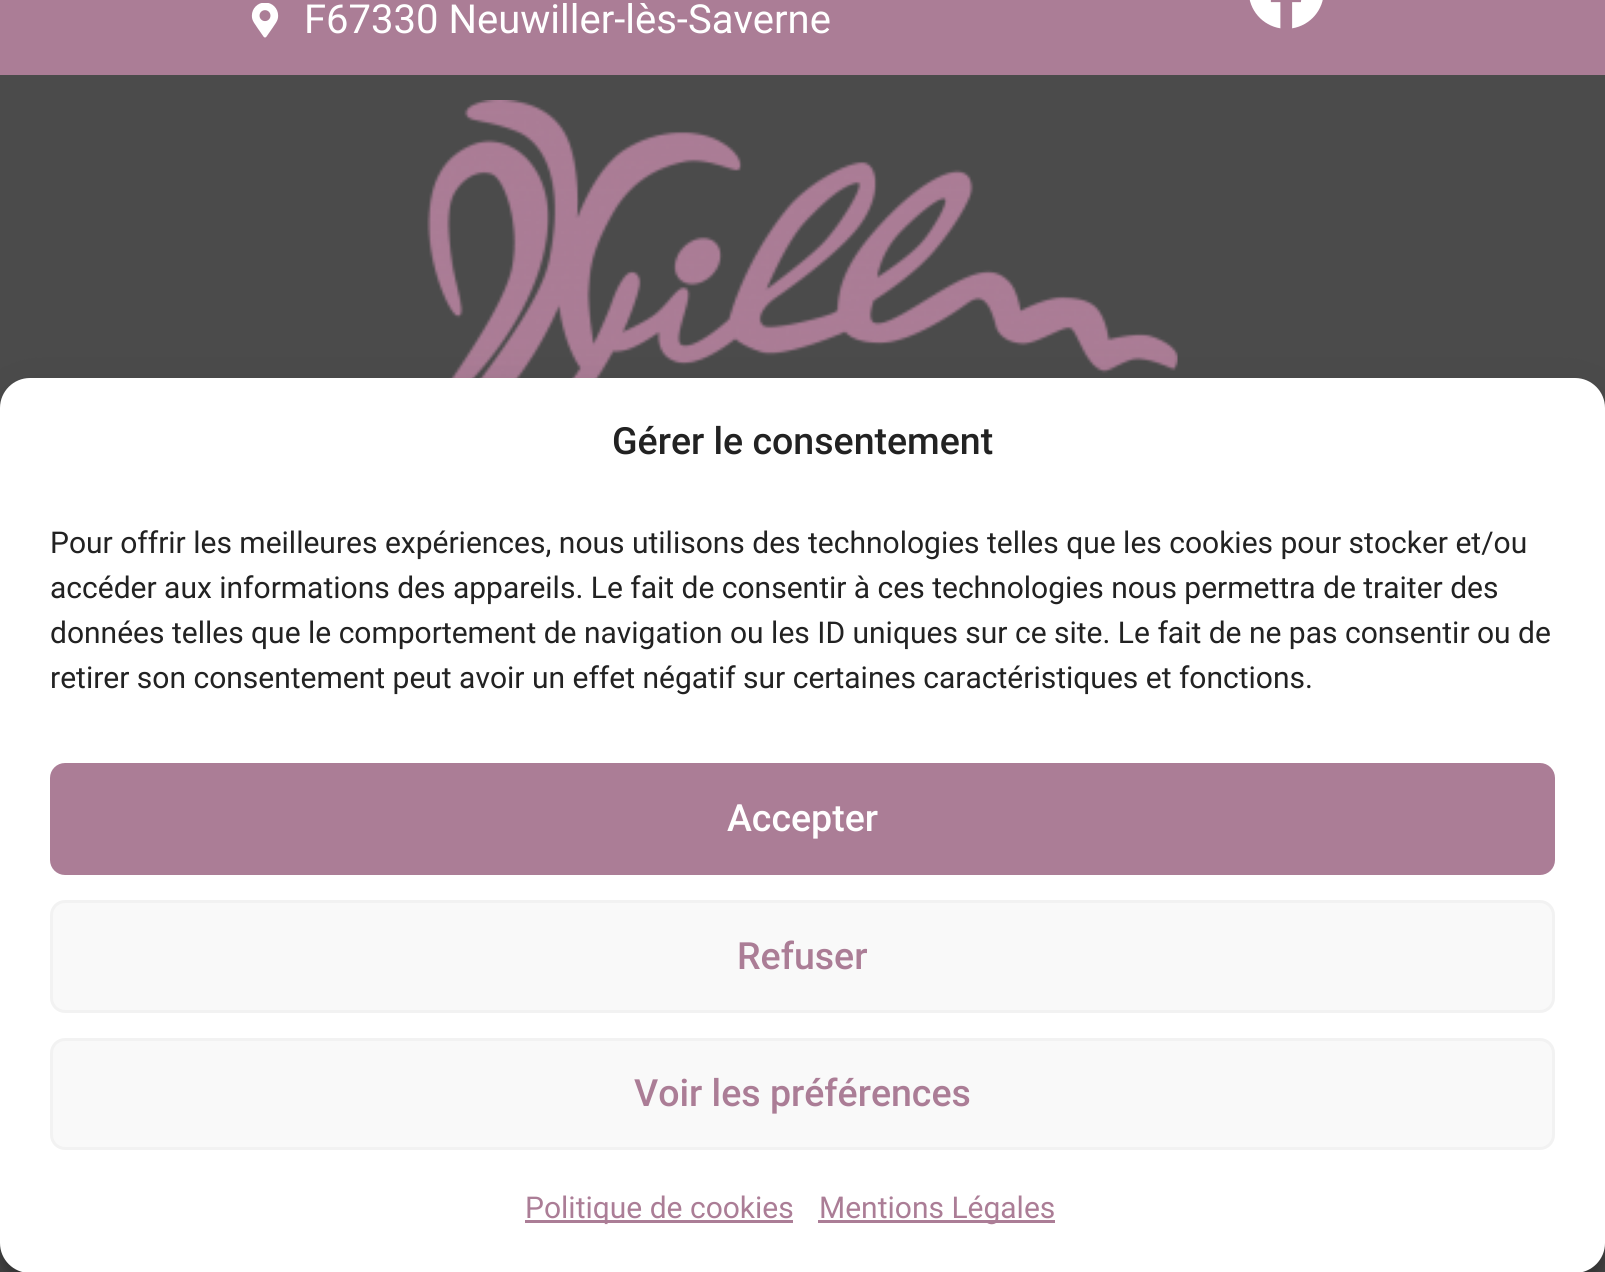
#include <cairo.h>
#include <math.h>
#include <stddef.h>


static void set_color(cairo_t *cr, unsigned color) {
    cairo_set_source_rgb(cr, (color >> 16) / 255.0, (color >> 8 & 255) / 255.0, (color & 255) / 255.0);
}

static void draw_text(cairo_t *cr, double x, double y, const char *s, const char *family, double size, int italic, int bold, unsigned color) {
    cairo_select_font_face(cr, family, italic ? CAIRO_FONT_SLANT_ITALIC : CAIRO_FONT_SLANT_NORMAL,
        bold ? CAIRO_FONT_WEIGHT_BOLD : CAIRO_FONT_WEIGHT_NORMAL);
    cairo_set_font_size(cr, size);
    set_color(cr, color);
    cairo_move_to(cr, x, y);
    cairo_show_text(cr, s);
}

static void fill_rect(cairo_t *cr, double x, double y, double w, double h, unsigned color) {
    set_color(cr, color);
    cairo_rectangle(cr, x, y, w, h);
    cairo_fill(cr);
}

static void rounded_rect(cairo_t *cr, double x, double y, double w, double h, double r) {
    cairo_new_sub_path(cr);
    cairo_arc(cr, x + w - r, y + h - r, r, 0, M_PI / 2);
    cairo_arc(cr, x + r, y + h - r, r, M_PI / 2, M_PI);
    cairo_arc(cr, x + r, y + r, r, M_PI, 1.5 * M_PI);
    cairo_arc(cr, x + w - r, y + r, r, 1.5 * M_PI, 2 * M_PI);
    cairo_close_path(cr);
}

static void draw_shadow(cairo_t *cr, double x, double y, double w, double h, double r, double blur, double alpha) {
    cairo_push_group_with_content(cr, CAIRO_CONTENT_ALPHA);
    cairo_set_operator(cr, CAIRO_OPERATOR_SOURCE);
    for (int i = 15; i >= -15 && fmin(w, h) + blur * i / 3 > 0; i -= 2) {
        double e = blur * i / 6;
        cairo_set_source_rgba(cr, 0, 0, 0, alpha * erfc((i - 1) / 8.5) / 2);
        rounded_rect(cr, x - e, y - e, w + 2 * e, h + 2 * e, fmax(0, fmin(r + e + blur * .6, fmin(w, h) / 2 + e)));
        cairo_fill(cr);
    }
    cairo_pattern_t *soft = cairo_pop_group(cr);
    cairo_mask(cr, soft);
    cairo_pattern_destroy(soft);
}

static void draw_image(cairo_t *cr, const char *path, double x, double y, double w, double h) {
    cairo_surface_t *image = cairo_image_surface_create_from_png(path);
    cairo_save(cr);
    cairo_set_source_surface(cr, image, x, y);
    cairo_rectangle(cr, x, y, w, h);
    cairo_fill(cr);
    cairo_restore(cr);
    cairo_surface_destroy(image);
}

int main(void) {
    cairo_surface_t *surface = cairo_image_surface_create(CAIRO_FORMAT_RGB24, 1605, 1272);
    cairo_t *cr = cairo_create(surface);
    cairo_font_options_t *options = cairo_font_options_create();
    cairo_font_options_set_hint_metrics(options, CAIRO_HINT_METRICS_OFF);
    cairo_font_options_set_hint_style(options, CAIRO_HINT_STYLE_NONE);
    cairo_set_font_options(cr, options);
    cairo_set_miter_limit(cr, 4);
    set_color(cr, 0x4B4B4B);
    cairo_paint(cr);
    fill_rect(cr, 0, 0, 1605, 75, 0xAB7D96);
    draw_image(cr, "assets/img1.png", 251, 3, 28, 35);
    draw_text(cr, 304, 33, "F67330 Neuwiller-lès-Saverne", "Roboto", 40, 0, 0, 0xFFFFFF);
    draw_image(cr, "assets/img2.png", 1249, 0, 74, 29);
    draw_image(cr, "assets/img3.png", 427, 100, 751, 278);
    set_color(cr, 0x000000);
    draw_shadow(cr, 0, 393, 1605, 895, 30, 7.5, 0.23);
    draw_shadow(cr, 0, 403, 1605, 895, 30, 25, 0.19);
    set_color(cr, 0x808080);
    draw_shadow(cr, 1430, 1088, 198, 150, 5, 6, 1);
    set_color(cr, 0xFFFFFF);
    rounded_rect(cr, 0, 378, 1605, 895, 30);
    cairo_fill(cr);
    draw_text(cr, 612, 454, "Gérer le consentement", "Roboto Medium", 37.5, 0, 0, 0x222222);
    draw_text(cr, 50, 553, "Pour offrir les meilleures expériences, nous utilisons des technologies telles que les cookies pour stocker et/ou", "Roboto", 30, 0, 0, 0x222222);
    draw_text(cr, 50, 598, "accéder aux informations des appareils. Le fait de consentir à ces technologies nous permettra de traiter des", "Roboto", 30, 0, 0, 0x222222);
    draw_text(cr, 50, 643, "données telles que le comportement de navigation ou les ID uniques sur ce site. Le fait de ne pas consentir ou de", "Roboto", 30, 0, 0, 0x222222);
    draw_text(cr, 50, 688, "retirer son consentement peut avoir un effet négatif sur certaines caractéristiques et fonctions.", "Roboto", 30, 0, 0, 0x222222);
    set_color(cr, 0xAB7D96);
    rounded_rect(cr, 51.5, 764.5, 1502, 109, 13.5);
    cairo_fill_preserve(cr);
    cairo_set_line_width(cr, 3);
    cairo_stroke(cr);
    draw_text(cr, 727, 831, "Accepter", "Roboto Medium", 37.5, 0, 0, 0xFFFFFF);
    set_color(cr, 0xF9F9F9);
    rounded_rect(cr, 51.5, 901.5, 1502, 110, 13.5);
    cairo_fill_preserve(cr);
    set_color(cr, 0xF2F2F2);
    cairo_stroke(cr);
    draw_text(cr, 737, 969, "Refuser", "Roboto Medium", 37.5, 0, 0, 0xAB7D96);
    set_color(cr, 0xF9F9F9);
    rounded_rect(cr, 51.5, 1039.5, 1502, 109, 13.5);
    cairo_fill_preserve(cr);
    set_color(cr, 0xF2F2F2);
    cairo_stroke(cr);
    draw_text(cr, 634, 1106, "Voir les préférences", "Roboto Medium", 37.5, 0, 0, 0xAB7D96);
    fill_rect(cr, 525, 1220, 268, 3, 0xAB7D96);
    draw_text(cr, 525, 1218, "Politique de cookies", "Roboto", 30, 0, 0, 0xAB7D96);
    fill_rect(cr, 818, 1220, 237, 3, 0xAB7D96);
    draw_text(cr, 819, 1218, "Mentions Légales", "Roboto", 30, 0, 0, 0xAB7D96);
    cairo_surface_write_to_png(surface, "output.png");
    cairo_font_options_destroy(options);
    cairo_destroy(cr);
    cairo_surface_destroy(surface);
    return 0;
}
